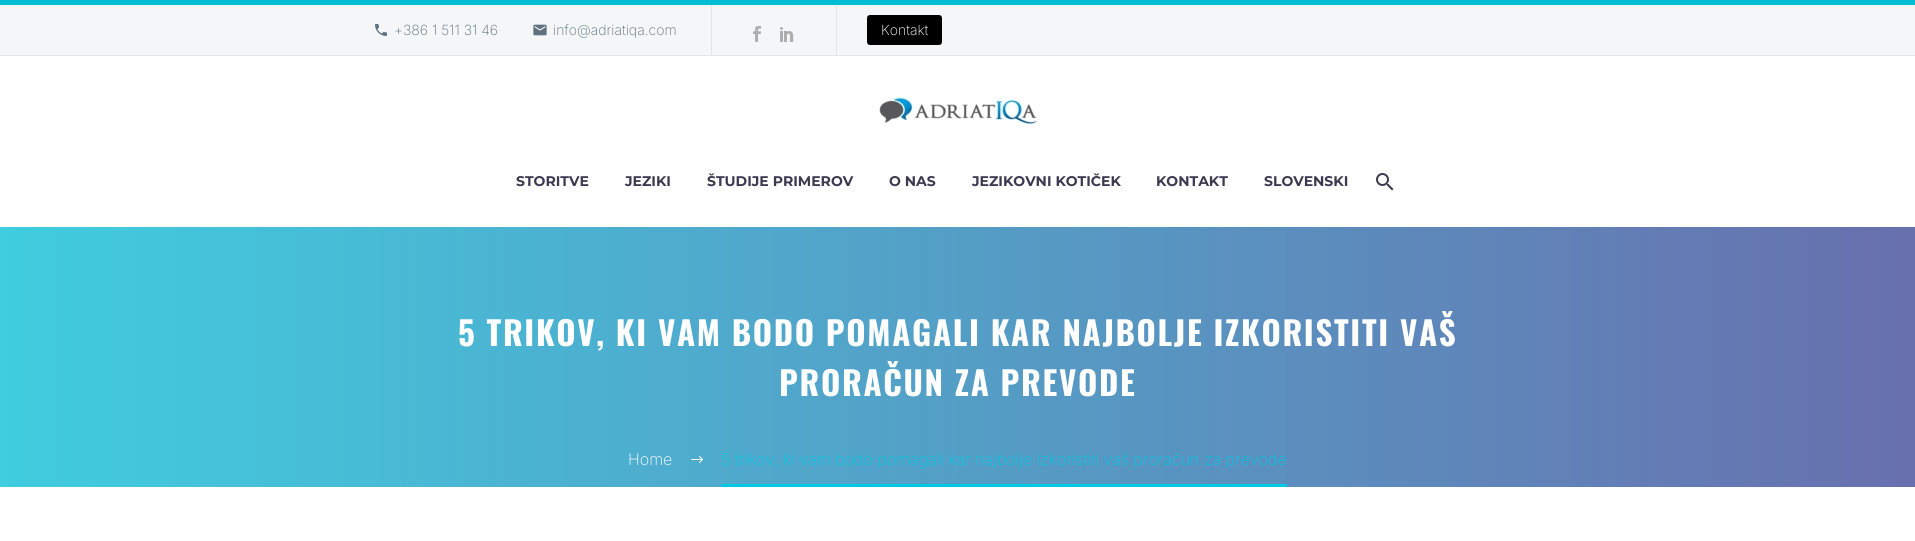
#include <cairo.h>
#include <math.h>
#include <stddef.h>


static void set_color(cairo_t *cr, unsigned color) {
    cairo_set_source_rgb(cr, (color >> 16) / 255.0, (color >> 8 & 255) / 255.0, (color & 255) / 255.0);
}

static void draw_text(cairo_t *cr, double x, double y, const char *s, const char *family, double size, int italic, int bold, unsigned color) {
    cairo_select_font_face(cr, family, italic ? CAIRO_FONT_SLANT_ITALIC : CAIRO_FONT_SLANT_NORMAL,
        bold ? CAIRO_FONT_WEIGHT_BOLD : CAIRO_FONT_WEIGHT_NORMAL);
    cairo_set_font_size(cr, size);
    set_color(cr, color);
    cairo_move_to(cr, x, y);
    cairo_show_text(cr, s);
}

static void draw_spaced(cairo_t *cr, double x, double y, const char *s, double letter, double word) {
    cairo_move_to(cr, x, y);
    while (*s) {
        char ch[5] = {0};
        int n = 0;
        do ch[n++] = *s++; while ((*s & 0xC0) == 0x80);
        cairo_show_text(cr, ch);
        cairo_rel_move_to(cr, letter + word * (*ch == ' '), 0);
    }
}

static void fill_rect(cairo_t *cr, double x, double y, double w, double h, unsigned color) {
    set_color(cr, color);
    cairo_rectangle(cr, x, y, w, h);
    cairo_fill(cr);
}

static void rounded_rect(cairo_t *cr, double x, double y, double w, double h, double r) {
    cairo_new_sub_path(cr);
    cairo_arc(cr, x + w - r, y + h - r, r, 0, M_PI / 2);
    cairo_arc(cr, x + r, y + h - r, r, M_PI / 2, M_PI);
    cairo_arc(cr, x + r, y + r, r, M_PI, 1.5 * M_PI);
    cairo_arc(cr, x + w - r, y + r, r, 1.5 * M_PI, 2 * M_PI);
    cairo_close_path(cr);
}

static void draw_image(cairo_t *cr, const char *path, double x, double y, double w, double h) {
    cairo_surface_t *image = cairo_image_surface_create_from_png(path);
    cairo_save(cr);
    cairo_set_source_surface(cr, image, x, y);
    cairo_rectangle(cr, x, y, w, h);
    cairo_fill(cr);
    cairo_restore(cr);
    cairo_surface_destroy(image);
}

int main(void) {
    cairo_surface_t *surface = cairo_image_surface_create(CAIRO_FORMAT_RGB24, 1915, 541);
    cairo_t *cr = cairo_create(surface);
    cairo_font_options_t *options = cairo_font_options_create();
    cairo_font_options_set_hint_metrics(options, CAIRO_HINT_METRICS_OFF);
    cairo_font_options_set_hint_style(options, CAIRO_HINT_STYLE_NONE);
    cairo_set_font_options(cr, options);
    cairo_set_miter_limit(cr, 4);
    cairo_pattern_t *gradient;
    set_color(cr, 0xFFFFFF);
    cairo_paint(cr);
    fill_rect(cr, 0, 5, 1915, 50, 0xF4F6F7);
    fill_rect(cr, 0, 0, 1915, 5, 0x00BCD4);
    fill_rect(cr, 0, 55, 1915, 1, 0xDFE5E8);
    draw_image(cr, "assets/img1.png", 375, 24, 12, 12);
    draw_text(cr, 394, 35, "+386 1 511 31 46", "Inter ExtraLight", 14, 0, 0, 0x5F727F);
    draw_image(cr, "assets/img2.png", 533, 24, 14, 12);
    draw_text(cr, 553, 35, "info@adriatiqa.com", "Inter ExtraLight", 14, 0, 0, 0x5F727F);
    fill_rect(cr, 711, 5, 1, 50, 0xDFE5E8);
    draw_image(cr, "assets/img3.png", 753, 26, 8, 16);
    draw_image(cr, "assets/img4.png", 780, 27, 14, 15);
    fill_rect(cr, 836, 5, 1, 50, 0xDFE5E8);
    set_color(cr, 0x000000);
    rounded_rect(cr, 867, 15, 75, 30, 3);
    cairo_fill(cr);
    draw_text(cr, 881, 35, "Kontakt", "Inter ExtraLight", 14, 0, 0, 0xFFFFFF);
    draw_image(cr, "assets/img5.png", 879, 97, 158, 28);
    draw_text(cr, 516, 186, "STORITVE", "Montserrat", 14, 0, 1, 0x3C3950);
    draw_text(cr, 625, 186, "JEZIKI", "Montserrat", 14, 0, 1, 0x3C3950);
    draw_text(cr, 707, 186, "ŠTUDIJE PRIMEROV", "Montserrat", 14, 0, 1, 0x3C3950);
    draw_text(cr, 889, 186, "O NAS", "Montserrat", 14, 0, 1, 0x3C3950);
    draw_text(cr, 972, 186, "JEZIKOVNI KOTIČEK", "Montserrat", 14, 0, 1, 0x3C3950);
    draw_text(cr, 1156, 186, "KONTAKT", "Montserrat", 14, 0, 1, 0x3C3950);
    draw_text(cr, 1264, 186, "SLOVENSKI", "Montserrat", 14, 0, 1, 0x3C3950);
    draw_image(cr, "assets/img6.png", 1376, 173, 18, 18);
    gradient = cairo_pattern_create_linear(0, 357, 1915, 357);
    cairo_pattern_add_color_stop_rgba(gradient, 0, 0.251, 0.804, 0.875, 1);
    cairo_pattern_add_color_stop_rgba(gradient, 1, 0.408, 0.439, 0.682, 1);
    cairo_set_source(cr, gradient);
    cairo_pattern_destroy(gradient);
    cairo_rectangle(cr, 0, 227, 1915, 260);
    cairo_fill(cr);
    cairo_select_font_face(cr, "Oswald", CAIRO_FONT_SLANT_NORMAL, CAIRO_FONT_WEIGHT_BOLD);
    cairo_set_font_size(cr, 33);
    set_color(cr, 0xFFFFFF);
    draw_spaced(cr, 458, 346, "5 TRIKOV, KI VAM BODO POMAGALI KAR NAJBOLJE IZKORISTITI VAŠ", 1.65, 0);
    draw_spaced(cr, 779, 396, "PRORAČUN ZA PREVODE", 1.65, 0);
    draw_text(cr, 628, 465, "Home", "Inter ExtraLight", 16, 0, 0, 0xFFFFFF);
    draw_image(cr, "assets/img7.png", 691, 456, 12, 7);
    fill_rect(cr, 721, 484, 566, 3, 0x00C9E3);
    draw_text(cr, 721, 465, "5 trikov, ki vam bodo pomagali kar najbolje izkoristiti vaš proračun za prevode", "Inter ExtraLight", 16, 0, 0, 0x00C9E3);
    cairo_surface_write_to_png(surface, "output.png");
    cairo_font_options_destroy(options);
    cairo_destroy(cr);
    cairo_surface_destroy(surface);
    return 0;
}
